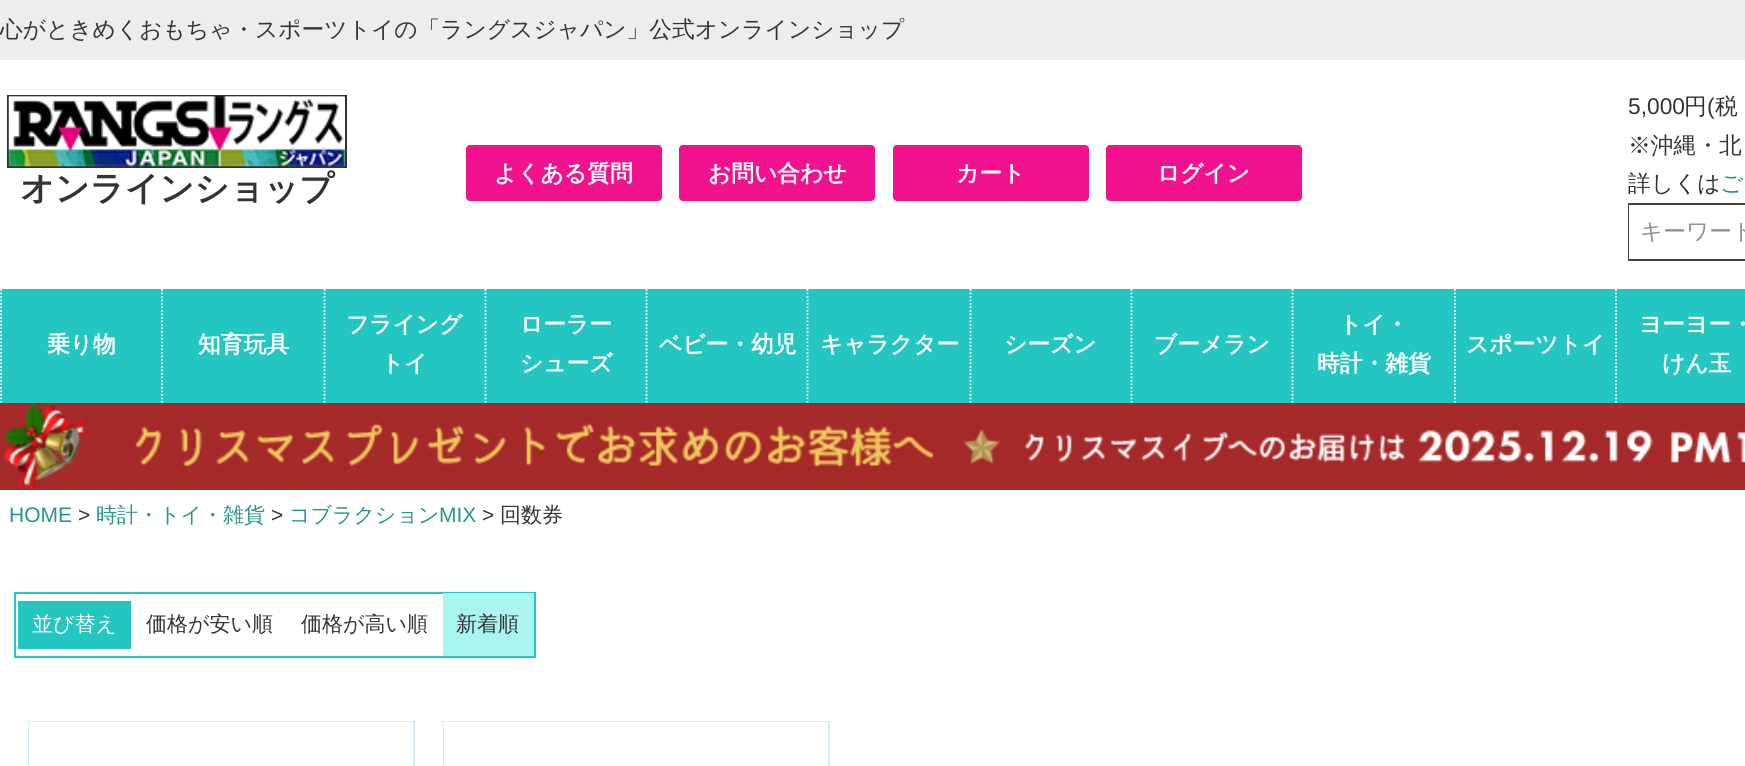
#include <cairo.h>
#include <math.h>
#include <stddef.h>


static void set_color(cairo_t *cr, unsigned color) {
    cairo_set_source_rgb(cr, (color >> 16) / 255.0, (color >> 8 & 255) / 255.0, (color & 255) / 255.0);
}

static void draw_text(cairo_t *cr, double x, double y, const char *s, const char *family, double size, int italic, int bold, unsigned color) {
    cairo_select_font_face(cr, family, italic ? CAIRO_FONT_SLANT_ITALIC : CAIRO_FONT_SLANT_NORMAL,
        bold ? CAIRO_FONT_WEIGHT_BOLD : CAIRO_FONT_WEIGHT_NORMAL);
    cairo_set_font_size(cr, size);
    set_color(cr, color);
    cairo_move_to(cr, x, y);
    cairo_show_text(cr, s);
}

static void fill_rect(cairo_t *cr, double x, double y, double w, double h, unsigned color) {
    set_color(cr, color);
    cairo_rectangle(cr, x, y, w, h);
    cairo_fill(cr);
}

static void rounded_rect(cairo_t *cr, double x, double y, double w, double h, double r) {
    cairo_new_sub_path(cr);
    cairo_arc(cr, x + w - r, y + h - r, r, 0, M_PI / 2);
    cairo_arc(cr, x + r, y + h - r, r, M_PI / 2, M_PI);
    cairo_arc(cr, x + r, y + r, r, M_PI, 1.5 * M_PI);
    cairo_arc(cr, x + w - r, y + r, r, 1.5 * M_PI, 2 * M_PI);
    cairo_close_path(cr);
}

static void draw_image(cairo_t *cr, const char *path, double x, double y, double w, double h) {
    cairo_surface_t *image = cairo_image_surface_create_from_png(path);
    cairo_save(cr);
    cairo_set_source_surface(cr, image, x, y);
    cairo_rectangle(cr, x, y, w, h);
    cairo_fill(cr);
    cairo_restore(cr);
    cairo_surface_destroy(image);
}

int main(void) {
    cairo_surface_t *surface = cairo_image_surface_create(CAIRO_FORMAT_RGB24, 1745, 766);
    cairo_t *cr = cairo_create(surface);
    cairo_font_options_t *options = cairo_font_options_create();
    cairo_font_options_set_hint_metrics(options, CAIRO_HINT_METRICS_OFF);
    cairo_font_options_set_hint_style(options, CAIRO_HINT_STYLE_NONE);
    cairo_set_font_options(cr, options);
    cairo_set_miter_limit(cr, 4);
    set_color(cr, 0xFFFFFF);
    cairo_paint(cr);
    fill_rect(cr, 0, 0, 1745, 60, 0xEDEDED);
    draw_text(cr, 0, 37, "心がときめくおもちゃ・スポーツトイの「ラングスジャパン」公式オンラインショップ", "WenQuanYi Zen Hei Medium", 22.75, 0, 0, 0x333333);
    cairo_rectangle(cr, 8, 96, 338, 71);
    cairo_stroke(cr);
    draw_image(cr, "assets/img1.png", 8, 96, 337, 71);
    draw_text(cr, 20, 200, "オンラインショップ", "WenQuanYi Zen Hei", 34.1, 0, 1, 0x333333);
    set_color(cr, 0xF3128E);
    rounded_rect(cr, 466, 145, 196, 56, 4);
    cairo_fill(cr);
    draw_text(cr, 494, 181, "よくある質問", "WenQuanYi Zen Hei", 22.75, 0, 1, 0xFFFFFF);
    set_color(cr, 0xF3128E);
    rounded_rect(cr, 679, 145, 196, 56, 4);
    cairo_fill(cr);
    draw_text(cr, 708, 181, "お問い合わせ", "WenQuanYi Zen Hei", 22.75, 0, 1, 0xFFFFFF);
    set_color(cr, 0xF3128E);
    rounded_rect(cr, 893, 145, 196, 56, 4);
    cairo_fill(cr);
    draw_text(cr, 956, 181, "カート", "WenQuanYi Zen Hei", 22.75, 0, 1, 0xFFFFFF);
    set_color(cr, 0xF3128E);
    rounded_rect(cr, 1106, 145, 196, 56, 4);
    cairo_fill(cr);
    draw_text(cr, 1157, 181, "ログイン", "WenQuanYi Zen Hei", 22.75, 0, 1, 0xFFFFFF);
    draw_text(cr, 1628, 114, "5,000", "Liberation Sans", 22.75, 0, 0, 0x333333);
    draw_text(cr, 1684, 114, "円", "WenQuanYi Zen Hei Medium", 22.75, 0, 0, 0x333333);
    draw_text(cr, 1707, 114, "(", "Liberation Sans", 22.75, 0, 0, 0x333333);
    draw_text(cr, 1715, 114, "税", "WenQuanYi Zen Hei Medium", 22.75, 0, 0, 0x333333);
    draw_text(cr, 1628, 153, "※沖縄・北", "WenQuanYi Zen Hei Medium", 22.75, 0, 0, 0x333333);
    draw_text(cr, 1628, 191, "詳しくは", "WenQuanYi Zen Hei Medium", 22.75, 0, 0, 0x333333);
    draw_text(cr, 1720, 191, "ご", "WenQuanYi Zen Hei Medium", 22.75, 0, 0, 0x259490);
    fill_rect(cr, 1628, 203, 117, 58, 0x444444);
    fill_rect(cr, 1629, 205, 116, 54, 0xFFFFFF);
    draw_text(cr, 1640, 239, "キーワード", "WenQuanYi Zen Hei Medium", 22.75, 0, 0, 0x919191);
    fill_rect(cr, 0, 289, 1745, 114, 0x24C6C1);
    cairo_new_path(cr);
    cairo_move_to(cr, 1, 289);
    cairo_line_to(cr, 1, 402.5);
    set_color(cr, 0xFFFFFF);
    cairo_set_line_width(cr, 1.8);
    cairo_set_dash(cr, (double[]){1.75, 1.75}, 2, 0);
    cairo_stroke(cr);
    draw_text(cr, 47, 352, "乗り物", "WenQuanYi Zen Hei", 22.75, 0, 1, 0xFFFFFF);
    cairo_new_path(cr);
    cairo_move_to(cr, 162, 289);
    cairo_line_to(cr, 162, 402.5);
    cairo_stroke(cr);
    draw_text(cr, 198, 352, "知育玩具", "WenQuanYi Zen Hei", 22.75, 0, 1, 0xFFFFFF);
    cairo_new_path(cr);
    cairo_move_to(cr, 324.5, 289);
    cairo_line_to(cr, 324.5, 402.5);
    cairo_stroke(cr);
    draw_text(cr, 346, 332, "フライング", "WenQuanYi Zen Hei", 22.75, 0, 1, 0xFFFFFF);
    draw_text(cr, 381, 371, "トイ", "WenQuanYi Zen Hei", 22.75, 0, 1, 0xFFFFFF);
    cairo_new_path(cr);
    cairo_move_to(cr, 485.5, 289);
    cairo_line_to(cr, 485.5, 402.5);
    cairo_stroke(cr);
    draw_text(cr, 520, 332, "ローラー", "WenQuanYi Zen Hei", 22.75, 0, 1, 0xFFFFFF);
    draw_text(cr, 520, 371, "シューズ", "WenQuanYi Zen Hei", 22.75, 0, 1, 0xFFFFFF);
    cairo_new_path(cr);
    cairo_move_to(cr, 646.5, 289);
    cairo_line_to(cr, 646.5, 402.5);
    cairo_stroke(cr);
    draw_text(cr, 659, 352, "ベビー・幼児", "WenQuanYi Zen Hei", 22.75, 0, 1, 0xFFFFFF);
    cairo_new_path(cr);
    cairo_move_to(cr, 807.5, 289);
    cairo_line_to(cr, 807.5, 402.5);
    cairo_stroke(cr);
    draw_text(cr, 820, 352, "キャラクター", "WenQuanYi Zen Hei", 22.75, 0, 1, 0xFFFFFF);
    cairo_new_path(cr);
    cairo_move_to(cr, 970.5, 289);
    cairo_line_to(cr, 970.5, 402.5);
    cairo_stroke(cr);
    draw_text(cr, 1004, 352, "シーズン", "WenQuanYi Zen Hei", 22.75, 0, 1, 0xFFFFFF);
    cairo_new_path(cr);
    cairo_move_to(cr, 1131.5, 289);
    cairo_line_to(cr, 1131.5, 402.5);
    cairo_stroke(cr);
    draw_text(cr, 1154, 352, "ブーメラン", "WenQuanYi Zen Hei", 22.75, 0, 1, 0xFFFFFF);
    cairo_new_path(cr);
    cairo_move_to(cr, 1292.5, 289);
    cairo_line_to(cr, 1292.5, 402.5);
    cairo_stroke(cr);
    draw_text(cr, 1339, 332, "トイ・", "WenQuanYi Zen Hei", 22.75, 0, 1, 0xFFFFFF);
    draw_text(cr, 1317, 371, "時計・雑貨", "WenQuanYi Zen Hei", 22.75, 0, 1, 0xFFFFFF);
    cairo_new_path(cr);
    cairo_move_to(cr, 1455, 289);
    cairo_line_to(cr, 1455, 402.5);
    cairo_stroke(cr);
    draw_text(cr, 1466, 352, "スポーツトイ", "WenQuanYi Zen Hei", 22.75, 0, 1, 0xFFFFFF);
    cairo_new_path(cr);
    cairo_move_to(cr, 1616, 289);
    cairo_line_to(cr, 1616, 402.5);
    cairo_stroke(cr);
    draw_text(cr, 1639, 332, "ヨーヨー・", "WenQuanYi Zen Hei", 22.75, 0, 1, 0xFFFFFF);
    draw_text(cr, 1662, 371, "けん玉", "WenQuanYi Zen Hei", 22.75, 0, 1, 0xFFFFFF);
    draw_image(cr, "assets/img2.png", 0, 403, 1745, 87);
    draw_text(cr, 9, 522, "HOME", "Liberation Sans", 21, 0, 0, 0x259490);
    draw_text(cr, 78, 522, ">", "Liberation Sans", 21, 0, 0, 0x333333);
    draw_text(cr, 96, 522, "時計・トイ・雑貨", "WenQuanYi Zen Hei Medium", 21, 0, 0, 0x259490);
    draw_text(cr, 271, 522, ">", "Liberation Sans", 21, 0, 0, 0x333333);
    draw_text(cr, 289, 522, "コブラクション", "WenQuanYi Zen Hei Medium", 21, 0, 0, 0x259490);
    draw_text(cr, 439, 522, "MIX", "Liberation Sans", 21, 0, 0, 0x259490);
    draw_text(cr, 482, 522, ">", "Liberation Sans", 21, 0, 0, 0x333333);
    draw_text(cr, 500, 522, "回数券", "WenQuanYi Zen Hei Medium", 21, 0, 0, 0x333333);
    cairo_rectangle(cr, 15, 593, 520, 64);
    set_color(cr, 0x24C6C1);
    cairo_set_line_width(cr, 2);
    cairo_set_dash(cr, NULL, 0, 0);
    cairo_stroke(cr);
    fill_rect(cr, 18, 601, 113, 48, 0x24C6C1);
    draw_text(cr, 32, 631, "並び替え", "WenQuanYi Zen Hei Medium", 21, 0, 0, 0xFFFFFF);
    draw_text(cr, 146, 631, "価格が安い順", "WenQuanYi Zen Hei Medium", 21, 0, 0, 0x333333);
    draw_text(cr, 301, 631, "価格が高い順", "WenQuanYi Zen Hei Medium", 21, 0, 0, 0x333333);
    fill_rect(cr, 443, 593, 91, 63, 0xAAF4F1);
    draw_text(cr, 456, 631, "新着順", "WenQuanYi Zen Hei Medium", 21, 0, 0, 0x333333);
    cairo_rectangle(cr, 29, 722, 385, 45);
    set_color(cr, 0xC9F2F7);
    cairo_stroke(cr);
    fill_rect(cr, 29, 722, 384, 44, 0xFFFFFF);
    cairo_rectangle(cr, 444, 722, 385, 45);
    set_color(cr, 0xC9F2F7);
    cairo_stroke(cr);
    fill_rect(cr, 444, 722, 384, 44, 0xFFFFFF);
    cairo_surface_write_to_png(surface, "output.png");
    cairo_font_options_destroy(options);
    cairo_destroy(cr);
    cairo_surface_destroy(surface);
    return 0;
}
